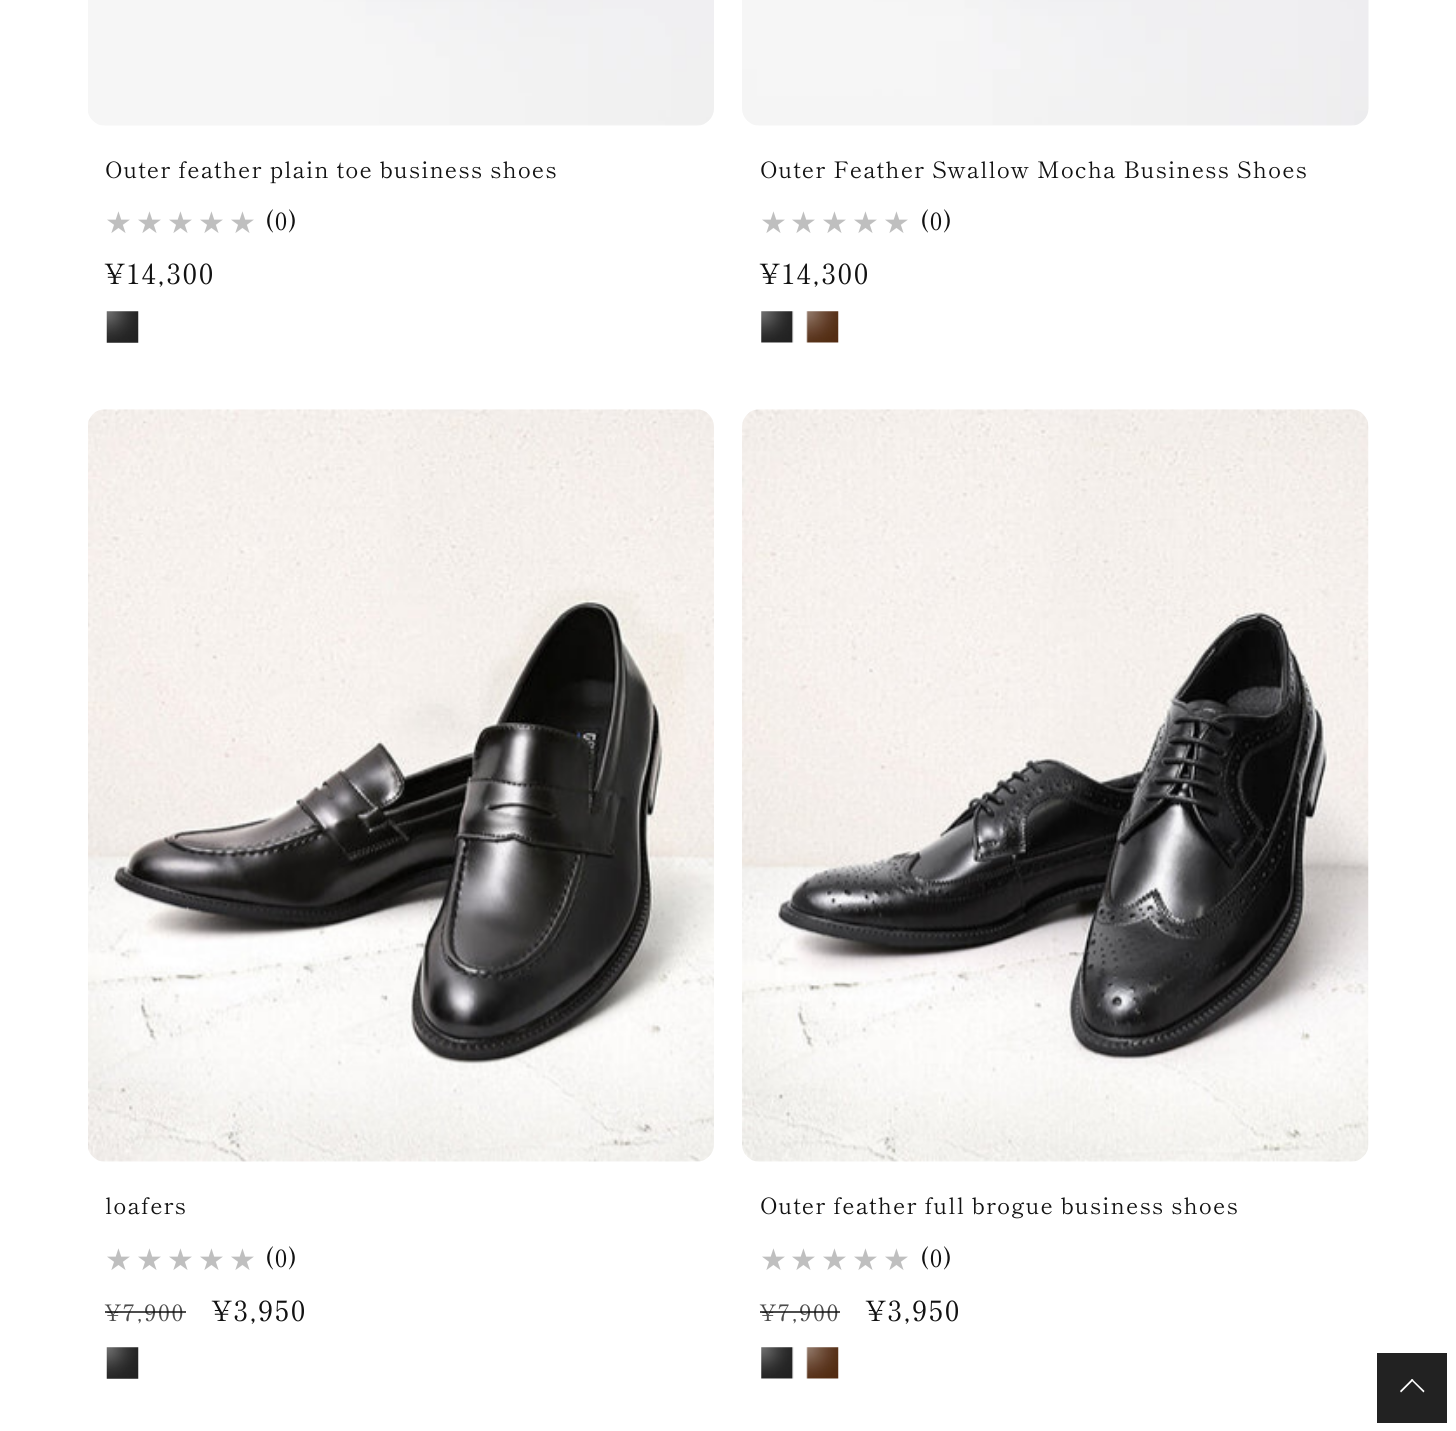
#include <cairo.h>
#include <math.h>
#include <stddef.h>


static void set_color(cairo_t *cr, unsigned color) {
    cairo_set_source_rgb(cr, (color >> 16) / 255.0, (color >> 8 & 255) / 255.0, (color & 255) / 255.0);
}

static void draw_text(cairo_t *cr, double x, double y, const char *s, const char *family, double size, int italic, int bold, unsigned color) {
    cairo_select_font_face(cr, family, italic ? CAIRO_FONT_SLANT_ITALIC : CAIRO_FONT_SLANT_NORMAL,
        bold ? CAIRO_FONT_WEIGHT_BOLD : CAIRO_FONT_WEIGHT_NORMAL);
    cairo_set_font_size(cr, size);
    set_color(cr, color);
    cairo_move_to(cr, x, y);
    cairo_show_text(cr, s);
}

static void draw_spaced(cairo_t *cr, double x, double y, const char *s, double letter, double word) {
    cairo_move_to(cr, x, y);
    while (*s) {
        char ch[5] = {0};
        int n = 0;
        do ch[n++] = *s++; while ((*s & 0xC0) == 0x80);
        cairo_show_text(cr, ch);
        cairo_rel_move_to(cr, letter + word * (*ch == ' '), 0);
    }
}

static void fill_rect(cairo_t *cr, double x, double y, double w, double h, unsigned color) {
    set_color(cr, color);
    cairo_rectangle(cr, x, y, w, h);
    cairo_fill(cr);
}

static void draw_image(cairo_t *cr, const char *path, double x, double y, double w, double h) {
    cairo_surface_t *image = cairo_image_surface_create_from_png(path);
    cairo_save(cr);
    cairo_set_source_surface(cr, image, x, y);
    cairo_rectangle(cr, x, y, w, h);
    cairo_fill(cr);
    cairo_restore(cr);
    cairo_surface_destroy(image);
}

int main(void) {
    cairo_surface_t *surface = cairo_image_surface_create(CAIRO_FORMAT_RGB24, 1456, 1431);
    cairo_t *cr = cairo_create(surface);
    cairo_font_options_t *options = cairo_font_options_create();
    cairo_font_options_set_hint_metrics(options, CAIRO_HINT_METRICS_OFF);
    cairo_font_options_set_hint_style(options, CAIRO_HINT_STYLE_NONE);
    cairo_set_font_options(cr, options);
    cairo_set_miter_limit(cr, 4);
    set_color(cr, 0xFFFFFF);
    cairo_paint(cr);
    draw_image(cr, "assets/img1.png", 88, 0, 626, 126);
    cairo_select_font_face(cr, "Shippori Mincho", CAIRO_FONT_SLANT_NORMAL, CAIRO_FONT_WEIGHT_NORMAL);
    cairo_set_font_size(cr, 22.75);
    set_color(cr, 0x121212);
    draw_spaced(cr, 105, 178, "Outer feather plain toe business shoes", 1.05, 0);
    draw_text(cr, 105, 233, "★", "DejaVu Sans", 30, 0, 0, 0xBFBFBF);
    draw_text(cr, 136, 233, "★", "DejaVu Sans", 30, 0, 0, 0xBFBFBF);
    draw_text(cr, 167, 233, "★", "DejaVu Sans", 30, 0, 0, 0xBFBFBF);
    draw_text(cr, 198, 233, "★", "DejaVu Sans", 30, 0, 0, 0xBFBFBF);
    draw_text(cr, 229, 233, "★", "DejaVu Sans", 30, 0, 0, 0xBFBFBF);
    cairo_select_font_face(cr, "Shippori Mincho", CAIRO_FONT_SLANT_NORMAL, CAIRO_FONT_WEIGHT_NORMAL);
    cairo_set_font_size(cr, 24);
    set_color(cr, 0x121212);
    draw_spaced(cr, 265, 230, "(0)", 1.05, 0);
    cairo_set_font_size(cr, 28);
    draw_spaced(cr, 105, 284, "¥14,300", 1.75, 0);
    draw_image(cr, "assets/img2.png", 106, 311, 33, 32);
    draw_image(cr, "assets/img3.png", 742, 0, 627, 126);
    cairo_set_font_size(cr, 22.75);
    draw_spaced(cr, 760, 178, "Outer Feather Swallow Mocha Business Shoes", 1.05, 0);
    draw_text(cr, 760, 233, "★", "DejaVu Sans", 30, 0, 0, 0xBFBFBF);
    draw_text(cr, 790, 233, "★", "DejaVu Sans", 30, 0, 0, 0xBFBFBF);
    draw_text(cr, 821, 233, "★", "DejaVu Sans", 30, 0, 0, 0xBFBFBF);
    draw_text(cr, 852, 233, "★", "DejaVu Sans", 30, 0, 0, 0xBFBFBF);
    draw_text(cr, 883, 233, "★", "DejaVu Sans", 30, 0, 0, 0xBFBFBF);
    cairo_select_font_face(cr, "Shippori Mincho", CAIRO_FONT_SLANT_NORMAL, CAIRO_FONT_WEIGHT_NORMAL);
    cairo_set_font_size(cr, 24);
    set_color(cr, 0x121212);
    draw_spaced(cr, 920, 230, "(0)", 1.05, 0);
    cairo_set_font_size(cr, 28);
    draw_spaced(cr, 760, 284, "¥14,300", 1.75, 0);
    draw_image(cr, "assets/img4.png", 761, 311, 33, 32);
    draw_image(cr, "assets/img5.png", 806, 311, 33, 32);
    draw_image(cr, "assets/img6.png", 88, 409, 626, 753);
    cairo_set_font_size(cr, 22.75);
    draw_spaced(cr, 105, 1214, "loafers", 1.05, 0);
    draw_text(cr, 105, 1270, "★", "DejaVu Sans", 30, 0, 0, 0xBFBFBF);
    draw_text(cr, 136, 1270, "★", "DejaVu Sans", 30, 0, 0, 0xBFBFBF);
    draw_text(cr, 167, 1270, "★", "DejaVu Sans", 30, 0, 0, 0xBFBFBF);
    draw_text(cr, 198, 1270, "★", "DejaVu Sans", 30, 0, 0, 0xBFBFBF);
    draw_text(cr, 229, 1270, "★", "DejaVu Sans", 30, 0, 0, 0xBFBFBF);
    cairo_select_font_face(cr, "Shippori Mincho", CAIRO_FONT_SLANT_NORMAL, CAIRO_FONT_WEIGHT_NORMAL);
    cairo_set_font_size(cr, 24);
    set_color(cr, 0x121212);
    draw_spaced(cr, 265, 1267, "(0)", 1.05, 0);
    cairo_set_font_size(cr, 22.75);
    set_color(cr, 0x4D4D4D);
    draw_spaced(cr, 105, 1321, "¥7,900", 1.75, 0);
    cairo_set_source_rgba(cr, 0.071, 0.071, 0.071, 0.75);
    cairo_rectangle(cr, 105, 1311, 81, 2);
    cairo_fill(cr);
    cairo_set_font_size(cr, 28);
    set_color(cr, 0x121212);
    draw_spaced(cr, 212, 1321, "¥3,950", 1.75, 0);
    draw_image(cr, "assets/img2.png", 106, 1347, 33, 32);
    draw_image(cr, "assets/img7.png", 742, 409, 627, 753);
    cairo_set_font_size(cr, 22.75);
    draw_spaced(cr, 760, 1214, "Outer feather full brogue business shoes", 1.05, 0);
    draw_text(cr, 760, 1270, "★", "DejaVu Sans", 30, 0, 0, 0xBFBFBF);
    draw_text(cr, 790, 1270, "★", "DejaVu Sans", 30, 0, 0, 0xBFBFBF);
    draw_text(cr, 821, 1270, "★", "DejaVu Sans", 30, 0, 0, 0xBFBFBF);
    draw_text(cr, 852, 1270, "★", "DejaVu Sans", 30, 0, 0, 0xBFBFBF);
    draw_text(cr, 883, 1270, "★", "DejaVu Sans", 30, 0, 0, 0xBFBFBF);
    cairo_select_font_face(cr, "Shippori Mincho", CAIRO_FONT_SLANT_NORMAL, CAIRO_FONT_WEIGHT_NORMAL);
    cairo_set_font_size(cr, 24);
    set_color(cr, 0x121212);
    draw_spaced(cr, 920, 1267, "(0)", 1.05, 0);
    cairo_set_font_size(cr, 22.75);
    set_color(cr, 0x4D4D4D);
    draw_spaced(cr, 760, 1321, "¥7,900", 1.75, 0);
    cairo_set_source_rgba(cr, 0.071, 0.071, 0.071, 0.75);
    cairo_rectangle(cr, 760, 1311, 80, 2);
    cairo_fill(cr);
    cairo_set_font_size(cr, 28);
    set_color(cr, 0x121212);
    draw_spaced(cr, 866, 1321, "¥3,950", 1.75, 0);
    draw_image(cr, "assets/img4.png", 761, 1347, 33, 32);
    draw_image(cr, "assets/img5.png", 806, 1347, 33, 32);
    fill_rect(cr, 1377, 1353, 70, 70, 0x222222);
    set_color(cr, 0xFFFFFF);
    cairo_new_path(cr);
    cairo_move_to(cr, 1400, 1391);
    cairo_line_to(cr, 1412, 1379);
    cairo_line_to(cr, 1413.5, 1380);
    cairo_line_to(cr, 1401, 1392.5);
    cairo_close_path(cr);
    cairo_fill(cr);
    cairo_new_path(cr);
    cairo_move_to(cr, 1411, 1380);
    cairo_line_to(cr, 1412, 1379);
    cairo_line_to(cr, 1424.5, 1391);
    cairo_line_to(cr, 1423.5, 1392.5);
    cairo_close_path(cr);
    cairo_fill(cr);
    cairo_surface_write_to_png(surface, "output.png");
    cairo_font_options_destroy(options);
    cairo_destroy(cr);
    cairo_surface_destroy(surface);
    return 0;
}
